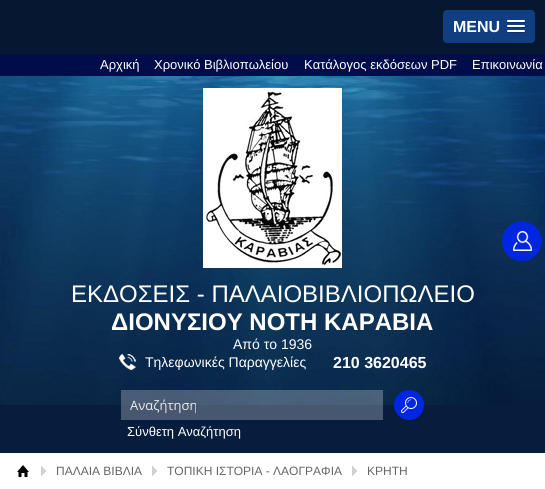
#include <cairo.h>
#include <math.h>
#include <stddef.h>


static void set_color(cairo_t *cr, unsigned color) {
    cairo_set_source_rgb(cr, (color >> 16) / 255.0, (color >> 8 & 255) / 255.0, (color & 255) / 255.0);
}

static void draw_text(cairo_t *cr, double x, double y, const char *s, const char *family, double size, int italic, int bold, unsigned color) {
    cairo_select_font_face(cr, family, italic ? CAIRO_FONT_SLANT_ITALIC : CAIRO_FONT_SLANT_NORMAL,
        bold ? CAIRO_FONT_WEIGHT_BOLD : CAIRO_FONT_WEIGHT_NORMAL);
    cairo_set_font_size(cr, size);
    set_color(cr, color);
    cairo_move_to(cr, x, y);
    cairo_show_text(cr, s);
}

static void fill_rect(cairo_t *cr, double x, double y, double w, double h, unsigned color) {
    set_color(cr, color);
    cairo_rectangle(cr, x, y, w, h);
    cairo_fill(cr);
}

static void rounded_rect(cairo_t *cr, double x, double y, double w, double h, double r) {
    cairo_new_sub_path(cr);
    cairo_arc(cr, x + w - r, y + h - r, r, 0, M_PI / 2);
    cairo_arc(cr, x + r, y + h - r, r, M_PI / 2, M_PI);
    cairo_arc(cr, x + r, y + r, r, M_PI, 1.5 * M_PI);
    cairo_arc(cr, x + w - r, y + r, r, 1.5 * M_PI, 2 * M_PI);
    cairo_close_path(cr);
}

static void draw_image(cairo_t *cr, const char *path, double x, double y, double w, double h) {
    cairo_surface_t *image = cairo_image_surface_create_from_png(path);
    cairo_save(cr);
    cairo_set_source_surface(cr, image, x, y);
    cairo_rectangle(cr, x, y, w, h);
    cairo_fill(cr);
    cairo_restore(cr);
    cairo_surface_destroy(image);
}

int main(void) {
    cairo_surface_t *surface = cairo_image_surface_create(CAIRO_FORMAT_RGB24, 545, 489);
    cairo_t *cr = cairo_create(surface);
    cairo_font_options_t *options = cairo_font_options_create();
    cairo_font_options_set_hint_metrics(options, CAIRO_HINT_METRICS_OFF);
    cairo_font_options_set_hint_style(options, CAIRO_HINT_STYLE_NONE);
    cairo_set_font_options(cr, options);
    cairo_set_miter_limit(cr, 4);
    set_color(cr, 0xFFFFFF);
    cairo_paint(cr);
    fill_rect(cr, 0, 0, 545, 54, 0x061831);
    set_color(cr, 0x103E81);
    rounded_rect(cr, 443, 10, 92, 33, 4);
    cairo_fill(cr);
    draw_text(cr, 453, 32, "MENU", "Liberation Sans", 16, 0, 1, 0xFFFFFF);
    set_color(cr, 0x0C2F61);
    cairo_new_path(cr);
    cairo_move_to(cr, 507, 21.5);
    cairo_curve_to(cr, 506, 23.5, 510.5, 23, 510.5, 23);
    cairo_line_to(cr, 521.5, 23);
    cairo_curve_to(cr, 521.5, 23, 526, 23.5, 525, 21.5);
    cairo_curve_to(cr, 524, 22.5, 517.5, 22, 516, 22);
    cairo_curve_to(cr, 514.5, 22, 508, 22.5, 507, 21.5);
    cairo_close_path(cr);
    cairo_fill(cr);
    set_color(cr, 0xFFFFFF);
    rounded_rect(cr, 507, 20, 18, 2, 1);
    cairo_fill(cr);
    set_color(cr, 0x0C2F61);
    cairo_new_path(cr);
    cairo_move_to(cr, 507, 26.5);
    cairo_curve_to(cr, 506, 28.5, 510.5, 28, 510.5, 28);
    cairo_line_to(cr, 521.5, 28);
    cairo_curve_to(cr, 521.5, 28, 526, 28.5, 525, 26.5);
    cairo_curve_to(cr, 524, 27.5, 517.5, 27, 516, 27);
    cairo_curve_to(cr, 514.5, 27, 508, 27.5, 507, 26.5);
    cairo_close_path(cr);
    cairo_fill(cr);
    set_color(cr, 0xFFFFFF);
    rounded_rect(cr, 507, 25, 18, 2, 1);
    cairo_fill(cr);
    set_color(cr, 0x0C2F61);
    cairo_new_path(cr);
    cairo_move_to(cr, 507, 31.5);
    cairo_curve_to(cr, 506, 33.5, 510.5, 33, 510.5, 33);
    cairo_line_to(cr, 521.5, 33);
    cairo_curve_to(cr, 521.5, 33, 526, 33.5, 525, 31.5);
    cairo_curve_to(cr, 524, 32.5, 517.5, 32, 516, 32);
    cairo_curve_to(cr, 514.5, 32, 508, 32.5, 507, 31.5);
    cairo_close_path(cr);
    cairo_fill(cr);
    set_color(cr, 0xFFFFFF);
    rounded_rect(cr, 507, 30, 18, 2, 1);
    cairo_fill(cr);
    fill_rect(cr, 0, 54, 545, 22, 0x010D4A);
    draw_text(cr, 100, 69, "Αρχική", "Liberation Sans", 13, 0, 0, 0xFFFFFF);
    draw_text(cr, 154, 69, "Χρονικό Βιβλιοπωλείου", "Liberation Sans", 13, 0, 0, 0xFFFFFF);
    draw_text(cr, 304, 69, "Κατάλογος εκδόσεων PDF", "Liberation Sans", 13, 0, 0, 0xFFFFFF);
    draw_text(cr, 472, 69, "Επικοινωνία", "Liberation Sans", 13, 0, 0, 0xFFFFFF);
    fill_rect(cr, 0, 405, 545, 48, 0x061D3D);
    draw_image(cr, "assets/img1.png", 0, 76, 545, 329);
    draw_image(cr, "assets/img2.png", 203, 88, 139, 180);
    draw_image(cr, "assets/img3.png", 502, 221, 40, 40);
    draw_text(cr, 71, 302, "ΕΚΔΟΣΕΙΣ - ΠΑΛΑΙΟΒΙΒΛΙΟΠΩΛΕΙΟ", "Liberation Sans", 24, 0, 0, 0xFFFFFF);
    draw_text(cr, 111, 330, "ΔΙΟΝΥΣΙΟΥ ΝΟΤΗ ΚΑΡΑΒΙΑ", "Liberation Sans", 24, 0, 1, 0xFFFFFF);
    draw_text(cr, 233, 349, "Από το 1936", "Liberation Sans", 14, 0, 0, 0xFFFFFF);
    draw_image(cr, "assets/img4.png", 119, 354, 17, 16);
    draw_text(cr, 145, 367, "Τηλεφωνικές Παραγγελίες", "Liberation Sans", 14, 0, 0, 0xFFFFFF);
    draw_text(cr, 333, 368, "210 3620465", "Liberation Sans", 16, 0, 1, 0xFFFFFF);
    cairo_set_source_rgba(cr, 1, 1, 1, 0.26);
    cairo_rectangle(cr, 121, 390, 262, 30);
    cairo_fill(cr);
    draw_text(cr, 130, 410, "Αναζήτηση", "Open Sans", 13, 0, 0, 0xECECEC);
    set_color(cr, 0x0126E2);
    cairo_new_path(cr);
    cairo_arc(cr, 409, 405, 15, 0, 2 * M_PI);
    cairo_fill(cr);
    draw_image(cr, "assets/img5.png", 401, 397, 16, 16);
    draw_text(cr, 127, 436, "Σύνθετη Αναζήτηση", "Liberation Sans", 13, 0, 0, 0xFFFFFF);
    draw_image(cr, "assets/img6.png", 17, 465, 12, 12);
    draw_image(cr, "assets/img7.png", 41, 466, 5, 10);
    draw_text(cr, 56, 475, "ΠΑΛΑΙΑ ΒΙΒΛΙΑ", "Liberation Sans", 12, 0, 0, 0x666666);
    draw_image(cr, "assets/img7.png", 152, 466, 5, 10);
    draw_text(cr, 167, 475, "ΤΟΠΙΚΗ ΙΣΤΟΡΙΑ - ΛΑΟΓΡΑΦΙΑ", "Liberation Sans", 12, 0, 0, 0x666666);
    draw_image(cr, "assets/img7.png", 352, 466, 5, 10);
    draw_text(cr, 367, 475, "ΚΡΗΤΗ", "Liberation Sans", 12, 0, 0, 0x666666);
    cairo_surface_write_to_png(surface, "output.png");
    cairo_font_options_destroy(options);
    cairo_destroy(cr);
    cairo_surface_destroy(surface);
    return 0;
}
